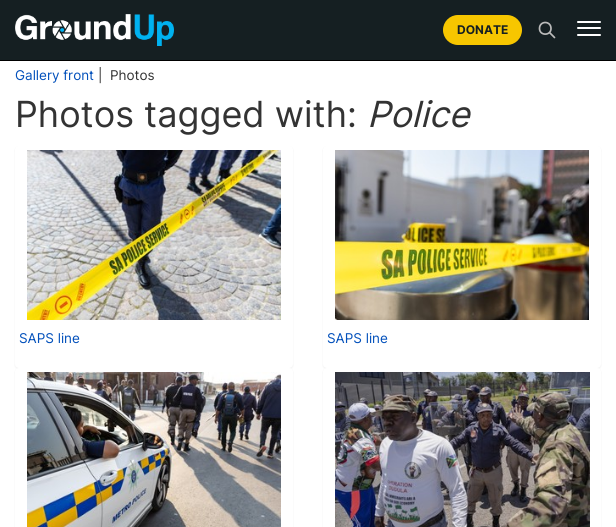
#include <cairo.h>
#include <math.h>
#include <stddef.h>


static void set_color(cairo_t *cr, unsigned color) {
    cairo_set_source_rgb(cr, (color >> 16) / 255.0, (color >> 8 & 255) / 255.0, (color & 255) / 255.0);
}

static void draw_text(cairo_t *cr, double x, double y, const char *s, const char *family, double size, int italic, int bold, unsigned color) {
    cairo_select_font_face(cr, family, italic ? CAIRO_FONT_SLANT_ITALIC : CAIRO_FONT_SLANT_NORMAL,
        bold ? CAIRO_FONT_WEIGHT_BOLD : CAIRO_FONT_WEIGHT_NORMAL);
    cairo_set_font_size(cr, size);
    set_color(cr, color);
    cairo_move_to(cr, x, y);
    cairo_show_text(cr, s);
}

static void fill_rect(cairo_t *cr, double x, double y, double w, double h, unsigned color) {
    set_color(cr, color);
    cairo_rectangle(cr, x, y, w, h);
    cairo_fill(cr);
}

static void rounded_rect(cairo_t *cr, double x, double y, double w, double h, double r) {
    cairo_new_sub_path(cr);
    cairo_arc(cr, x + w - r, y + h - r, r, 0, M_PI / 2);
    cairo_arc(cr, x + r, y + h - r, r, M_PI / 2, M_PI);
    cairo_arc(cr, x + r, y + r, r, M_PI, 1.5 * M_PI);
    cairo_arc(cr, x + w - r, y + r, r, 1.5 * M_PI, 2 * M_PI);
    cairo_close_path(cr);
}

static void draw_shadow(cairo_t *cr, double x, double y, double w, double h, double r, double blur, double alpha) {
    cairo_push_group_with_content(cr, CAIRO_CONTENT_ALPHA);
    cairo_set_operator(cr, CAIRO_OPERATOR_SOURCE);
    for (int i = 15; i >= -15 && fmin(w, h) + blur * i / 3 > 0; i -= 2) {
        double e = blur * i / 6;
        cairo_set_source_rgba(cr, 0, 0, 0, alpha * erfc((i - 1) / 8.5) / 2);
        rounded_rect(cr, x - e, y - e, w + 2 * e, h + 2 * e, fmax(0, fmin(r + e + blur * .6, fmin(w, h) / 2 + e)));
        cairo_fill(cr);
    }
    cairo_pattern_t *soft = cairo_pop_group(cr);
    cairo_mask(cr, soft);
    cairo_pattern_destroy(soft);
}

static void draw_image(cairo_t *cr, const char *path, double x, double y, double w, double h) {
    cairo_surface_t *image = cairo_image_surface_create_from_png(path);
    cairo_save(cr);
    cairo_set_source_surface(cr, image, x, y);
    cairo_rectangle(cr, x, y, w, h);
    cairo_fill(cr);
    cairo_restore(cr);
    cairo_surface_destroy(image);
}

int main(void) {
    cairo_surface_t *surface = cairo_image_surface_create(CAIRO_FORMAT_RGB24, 616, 527);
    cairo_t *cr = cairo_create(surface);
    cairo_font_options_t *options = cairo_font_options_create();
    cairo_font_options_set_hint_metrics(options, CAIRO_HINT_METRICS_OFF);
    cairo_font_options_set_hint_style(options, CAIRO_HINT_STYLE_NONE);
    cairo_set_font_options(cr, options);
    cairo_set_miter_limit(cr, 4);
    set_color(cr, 0xFFFFFF);
    cairo_paint(cr);
    fill_rect(cr, 0, 0, 616, 60, 0x151F22);
    fill_rect(cr, 0, 60, 616, 1, 0x000000);
    draw_image(cr, "assets/img1.png", 15, 14, 159, 32);
    set_color(cr, 0xF7C600);
    rounded_rect(cr, 443, 15, 79, 30, 15);
    cairo_fill(cr);
    draw_text(cr, 457, 34, "DONATE", "Inter", 12, 0, 1, 0x151F22);
    cairo_new_path(cr);
    cairo_move_to(cr, 554.5, 37.5);
    cairo_line_to(cr, 549.5, 32.5);
    cairo_move_to(cr, 551, 28.5);
    cairo_curve_to(cr, 551, 36, 539.5, 36, 539.5, 28.5);
    cairo_curve_to(cr, 539.5, 20.5, 551, 20.5, 551, 28.5);
    cairo_close_path(cr);
    set_color(cr, 0xBBBBBB);
    cairo_set_line_width(cr, 1.7);
    cairo_set_line_cap(cr, CAIRO_LINE_CAP_ROUND);
    cairo_set_line_join(cr, CAIRO_LINE_JOIN_ROUND);
    cairo_stroke(cr);
    set_color(cr, 0xFFFFFF);
    rounded_rect(cr, 577, 21, 24, 2, 1);
    cairo_fill(cr);
    rounded_rect(cr, 577, 27, 24, 2, 1);
    cairo_fill(cr);
    rounded_rect(cr, 577, 34, 24, 2, 1);
    cairo_fill(cr);
    draw_text(cr, 15, 80, "Gallery front", "Inter", 13.5, 0, 0, 0x0250BB);
    draw_text(cr, 98, 80, "|", "Inter", 13.5, 0, 0, 0x333333);
    draw_text(cr, 110, 80, "Photos", "Inter", 13.5, 0, 0, 0x333333);
    draw_text(cr, 15, 127, "Photos tagged with:", "Inter", 36, 0, 0, 0x333333);
    draw_text(cr, 367, 127, "Police", "Inter", 36, 1, 0, 0x333333);
    set_color(cr, 0x000000);
    draw_shadow(cr, 15, 147, 278, 222, 4, 1, 0.07);
    set_color(cr, 0xFFFFFF);
    rounded_rect(cr, 15, 146, 278, 222, 4);
    cairo_fill(cr);
    draw_image(cr, "assets/img2.png", 27, 150, 254, 170);
    draw_text(cr, 19, 343, "SAPS line", "Inter", 13.5, 0, 0, 0x0250BB);
    set_color(cr, 0x000000);
    draw_shadow(cr, 323, 147, 278, 222, 4, 1, 0.07);
    set_color(cr, 0xFFFFFF);
    rounded_rect(cr, 323, 146, 278, 222, 4);
    cairo_fill(cr);
    draw_image(cr, "assets/img3.png", 335, 150, 254, 170);
    draw_text(cr, 327, 343, "SAPS line", "Inter", 13.5, 0, 0, 0x0250BB);
    set_color(cr, 0x000000);
    draw_shadow(cr, 15, 369, 278, 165, 4, 1, 0.07);
    set_color(cr, 0xFFFFFF);
    rounded_rect(cr, 15, 368, 278, 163, 4);
    cairo_fill(cr);
    draw_image(cr, "assets/img4.png", 27, 372, 254, 155);
    set_color(cr, 0x000000);
    draw_shadow(cr, 323, 369, 278, 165, 4, 1, 0.07);
    set_color(cr, 0xFFFFFF);
    rounded_rect(cr, 323, 368, 278, 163, 4);
    cairo_fill(cr);
    draw_image(cr, "assets/img5.png", 335, 372, 255, 155);
    cairo_surface_write_to_png(surface, "output.png");
    cairo_font_options_destroy(options);
    cairo_destroy(cr);
    cairo_surface_destroy(surface);
    return 0;
}
